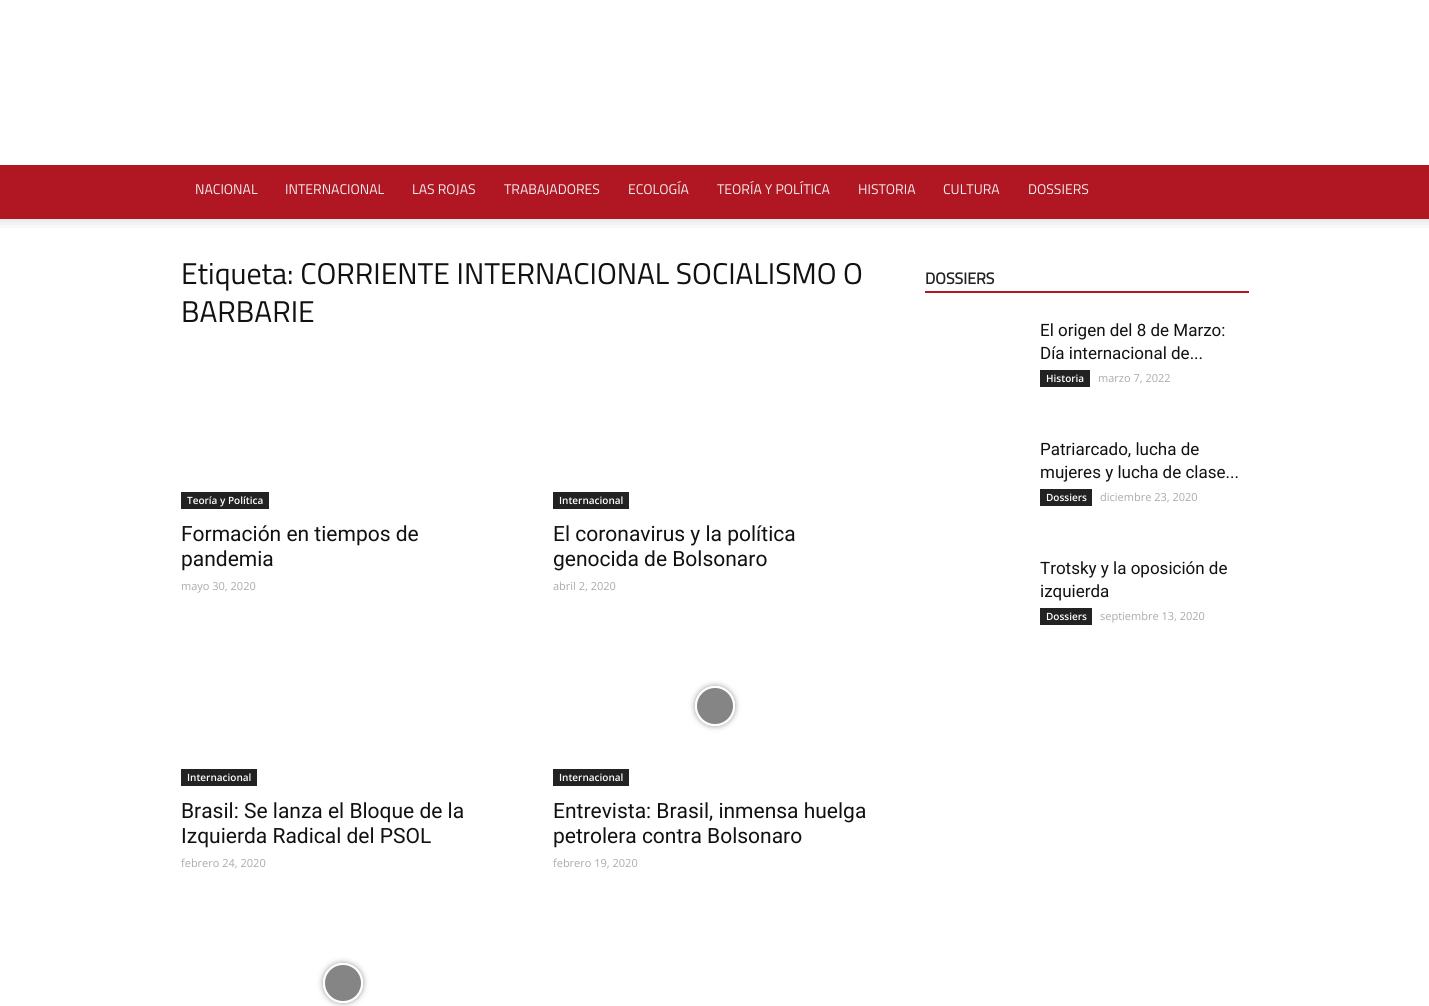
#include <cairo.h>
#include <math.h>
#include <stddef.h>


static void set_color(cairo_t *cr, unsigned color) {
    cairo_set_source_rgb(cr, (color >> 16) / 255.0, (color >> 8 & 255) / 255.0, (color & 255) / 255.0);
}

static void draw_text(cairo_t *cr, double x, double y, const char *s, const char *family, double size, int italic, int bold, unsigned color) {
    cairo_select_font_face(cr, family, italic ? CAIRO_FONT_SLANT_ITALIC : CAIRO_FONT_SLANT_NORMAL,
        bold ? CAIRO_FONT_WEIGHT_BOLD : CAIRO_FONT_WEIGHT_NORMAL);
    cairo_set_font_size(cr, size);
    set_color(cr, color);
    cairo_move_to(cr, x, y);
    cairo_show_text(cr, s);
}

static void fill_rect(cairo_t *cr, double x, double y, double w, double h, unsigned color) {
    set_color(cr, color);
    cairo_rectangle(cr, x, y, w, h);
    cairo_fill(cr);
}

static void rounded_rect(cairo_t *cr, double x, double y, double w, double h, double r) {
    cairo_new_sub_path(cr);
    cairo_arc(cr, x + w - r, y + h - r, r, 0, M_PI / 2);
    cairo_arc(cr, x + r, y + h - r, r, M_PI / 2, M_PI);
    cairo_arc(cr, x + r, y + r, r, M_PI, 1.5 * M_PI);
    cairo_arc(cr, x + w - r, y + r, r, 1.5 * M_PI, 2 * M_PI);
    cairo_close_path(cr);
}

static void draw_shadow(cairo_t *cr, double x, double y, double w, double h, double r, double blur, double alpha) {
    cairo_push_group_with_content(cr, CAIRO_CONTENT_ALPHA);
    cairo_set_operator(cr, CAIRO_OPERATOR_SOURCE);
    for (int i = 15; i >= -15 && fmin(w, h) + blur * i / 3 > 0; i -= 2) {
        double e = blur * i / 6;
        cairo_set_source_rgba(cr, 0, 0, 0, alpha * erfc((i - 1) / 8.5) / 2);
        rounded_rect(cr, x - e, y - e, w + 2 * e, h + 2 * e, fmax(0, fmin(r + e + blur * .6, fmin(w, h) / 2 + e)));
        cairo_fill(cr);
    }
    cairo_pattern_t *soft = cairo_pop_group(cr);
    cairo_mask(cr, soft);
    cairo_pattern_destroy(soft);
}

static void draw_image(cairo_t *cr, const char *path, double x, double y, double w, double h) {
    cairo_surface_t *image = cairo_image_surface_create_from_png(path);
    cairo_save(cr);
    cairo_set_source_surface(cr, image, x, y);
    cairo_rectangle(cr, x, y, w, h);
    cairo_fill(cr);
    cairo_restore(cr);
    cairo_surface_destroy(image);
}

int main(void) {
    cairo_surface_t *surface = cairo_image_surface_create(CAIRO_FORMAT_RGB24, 1429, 1006);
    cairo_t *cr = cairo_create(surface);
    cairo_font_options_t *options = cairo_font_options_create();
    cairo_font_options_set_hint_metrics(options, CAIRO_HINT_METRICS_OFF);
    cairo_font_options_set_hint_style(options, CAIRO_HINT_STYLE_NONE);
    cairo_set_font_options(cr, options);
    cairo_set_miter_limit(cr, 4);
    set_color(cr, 0xFFFFFF);
    cairo_paint(cr);
    fill_rect(cr, 0, 165, 1429, 54, 0xB11623);
    draw_text(cr, 195, 194, "NACIONAL", "Titillium Web", 14, 0, 0, 0xEFEFEF);
    draw_text(cr, 285, 194, "INTERNACIONAL", "Titillium Web", 14, 0, 0, 0xEFEFEF);
    draw_text(cr, 412, 194, "LAS ROJAS", "Titillium Web", 14, 0, 0, 0xEFEFEF);
    draw_text(cr, 504, 194, "TRABAJADORES", "Titillium Web", 14, 0, 0, 0xEFEFEF);
    draw_text(cr, 628, 194, "ECOLOGÍA", "Titillium Web", 14, 0, 0, 0xEFEFEF);
    draw_text(cr, 717, 194, "TEORÍA Y POLÍTICA", "Titillium Web", 14, 0, 0, 0xEFEFEF);
    draw_text(cr, 858, 194, "HISTORIA", "Titillium Web", 14, 0, 0, 0xEFEFEF);
    draw_text(cr, 943, 194, "CULTURA", "Titillium Web", 14, 0, 0, 0xEFEFEF);
    draw_text(cr, 1028, 194, "DOSSIERS", "Titillium Web", 14, 0, 0, 0xEFEFEF);
    draw_image(cr, "assets/img1.png", 0, 219, 1429, 9);
    draw_text(cr, 181, 284, "Etiqueta: CORRIENTE INTERNACIONAL SOCIALISMO O", "Titillium Web", 30, 0, 0, 0x111111);
    draw_text(cr, 181, 322, "BARBARIE", "Titillium Web", 30, 0, 0, 0x111111);
    fill_rect(cr, 181, 492, 88, 17, 0x222222);
    draw_text(cr, 187, 504, "Teoría y Política", "Open Sans SemiBold", 10, 0, 0, 0xFFFFFF);
    draw_text(cr, 181, 541, "Formación en tiempos de", "Roboto", 21, 0, 0, 0x111111);
    draw_text(cr, 181, 566, "pandemia", "Roboto", 21, 0, 0, 0x111111);
    draw_text(cr, 181, 590, "mayo 30, 2020", "Open Sans", 11, 0, 0, 0xAAAAAA);
    fill_rect(cr, 553, 492, 76, 17, 0x222222);
    draw_text(cr, 559, 504, "Internacional", "Open Sans SemiBold", 10, 0, 0, 0xFFFFFF);
    draw_text(cr, 553, 541, "El coronavirus y la política", "Roboto", 21, 0, 0, 0x111111);
    draw_text(cr, 553, 566, "genocida de Bolsonaro", "Roboto", 21, 0, 0, 0x111111);
    draw_text(cr, 553, 590, "abril 2, 2020", "Open Sans", 11, 0, 0, 0xAAAAAA);
    fill_rect(cr, 181, 769, 76, 17, 0x222222);
    draw_text(cr, 187, 781, "Internacional", "Open Sans SemiBold", 10, 0, 0, 0xFFFFFF);
    draw_text(cr, 181, 818, "Brasil: Se lanza el Bloque de la", "Roboto", 21, 0, 0, 0x111111);
    draw_text(cr, 181, 843, "Izquierda Radical del PSOL", "Roboto", 21, 0, 0, 0x111111);
    draw_text(cr, 181, 867, "febrero 24, 2020", "Open Sans", 11, 0, 0, 0xAAAAAA);
    cairo_save(cr);
    cairo_set_fill_rule(cr, CAIRO_FILL_RULE_EVEN_ODD);
    cairo_new_path(cr);
    cairo_move_to(cr, 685, 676);
    cairo_line_to(cr, 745, 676);
    cairo_line_to(cr, 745, 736);
    cairo_line_to(cr, 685, 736);
    cairo_close_path(cr);
    cairo_move_to(cr, 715, 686);
    cairo_curve_to(cr, 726, 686, 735, 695, 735, 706);
    cairo_curve_to(cr, 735, 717, 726, 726, 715, 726);
    cairo_curve_to(cr, 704, 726, 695, 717, 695, 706);
    cairo_curve_to(cr, 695, 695, 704, 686, 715, 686);
    cairo_close_path(cr);
    cairo_clip(cr);
    set_color(cr, 0x000000);
    draw_shadow(cr, 695, 686, 40, 40, 20, 3, 0.4);
    cairo_restore(cr);
    cairo_set_source_rgba(cr, 0, 0, 0, 0.48);
    cairo_arc(cr, 715, 706, 19, 0, 2 * M_PI);
    cairo_fill_preserve(cr);
    set_color(cr, 0xFFFFFF);
    cairo_stroke(cr);
    fill_rect(cr, 553, 769, 76, 17, 0x222222);
    draw_text(cr, 559, 781, "Internacional", "Open Sans SemiBold", 10, 0, 0, 0xFFFFFF);
    draw_text(cr, 553, 818, "Entrevista: Brasil, inmensa huelga", "Roboto", 21, 0, 0, 0x111111);
    draw_text(cr, 553, 843, "petrolera contra Bolsonaro", "Roboto", 21, 0, 0, 0x111111);
    draw_text(cr, 553, 867, "febrero 19, 2020", "Open Sans", 11, 0, 0, 0xAAAAAA);
    cairo_save(cr);
    cairo_set_fill_rule(cr, CAIRO_FILL_RULE_EVEN_ODD);
    cairo_new_path(cr);
    cairo_move_to(cr, 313, 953);
    cairo_line_to(cr, 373, 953);
    cairo_line_to(cr, 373, 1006);
    cairo_line_to(cr, 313, 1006);
    cairo_close_path(cr);
    cairo_move_to(cr, 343, 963);
    cairo_curve_to(cr, 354, 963, 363, 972, 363, 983);
    cairo_curve_to(cr, 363, 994, 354, 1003, 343, 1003);
    cairo_curve_to(cr, 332, 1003, 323, 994, 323, 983);
    cairo_curve_to(cr, 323, 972, 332, 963, 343, 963);
    cairo_close_path(cr);
    cairo_clip(cr);
    set_color(cr, 0x000000);
    draw_shadow(cr, 323, 963, 40, 40, 20, 3, 0.4);
    cairo_restore(cr);
    cairo_set_source_rgba(cr, 0, 0, 0, 0.48);
    cairo_arc(cr, 343, 983, 19, 0, 2 * M_PI);
    cairo_fill_preserve(cr);
    set_color(cr, 0xFFFFFF);
    cairo_stroke(cr);
    fill_rect(cr, 925, 291, 324, 2, 0xB11623);
    draw_text(cr, 925, 284, "DOSSIERS", "Titillium Web", 16, 0, 1, 0x222222);
    draw_text(cr, 1040, 336, "El origen del 8 de Marzo:", "Roboto", 17, 0, 0, 0x111111);
    draw_text(cr, 1040, 359, "Día internacional de...", "Roboto", 17, 0, 0, 0x111111);
    fill_rect(cr, 1040, 370, 50, 17, 0x222222);
    draw_text(cr, 1046, 382, "Historia", "Open Sans SemiBold", 10, 0, 0, 0xFFFFFF);
    draw_text(cr, 1098, 382, "marzo 7, 2022", "Open Sans", 11, 0, 0, 0xAAAAAA);
    draw_text(cr, 1040, 455, "Patriarcado, lucha de", "Roboto", 17, 0, 0, 0x111111);
    draw_text(cr, 1040, 478, "mujeres y lucha de clase...", "Roboto", 17, 0, 0, 0x111111);
    fill_rect(cr, 1040, 489, 52, 17, 0x222222);
    draw_text(cr, 1046, 501, "Dossiers", "Open Sans SemiBold", 10, 0, 0, 0xFFFFFF);
    draw_text(cr, 1100, 501, "diciembre 23, 2020", "Open Sans", 11, 0, 0, 0xAAAAAA);
    draw_text(cr, 1040, 574, "Trotsky y la oposición de", "Roboto", 17, 0, 0, 0x111111);
    draw_text(cr, 1040, 597, "izquierda", "Roboto", 17, 0, 0, 0x111111);
    fill_rect(cr, 1040, 608, 52, 17, 0x222222);
    draw_text(cr, 1046, 620, "Dossiers", "Open Sans SemiBold", 10, 0, 0, 0xFFFFFF);
    draw_text(cr, 1100, 620, "septiembre 13, 2020", "Open Sans", 11, 0, 0, 0xAAAAAA);
    cairo_surface_write_to_png(surface, "output.png");
    cairo_font_options_destroy(options);
    cairo_destroy(cr);
    cairo_surface_destroy(surface);
    return 0;
}
